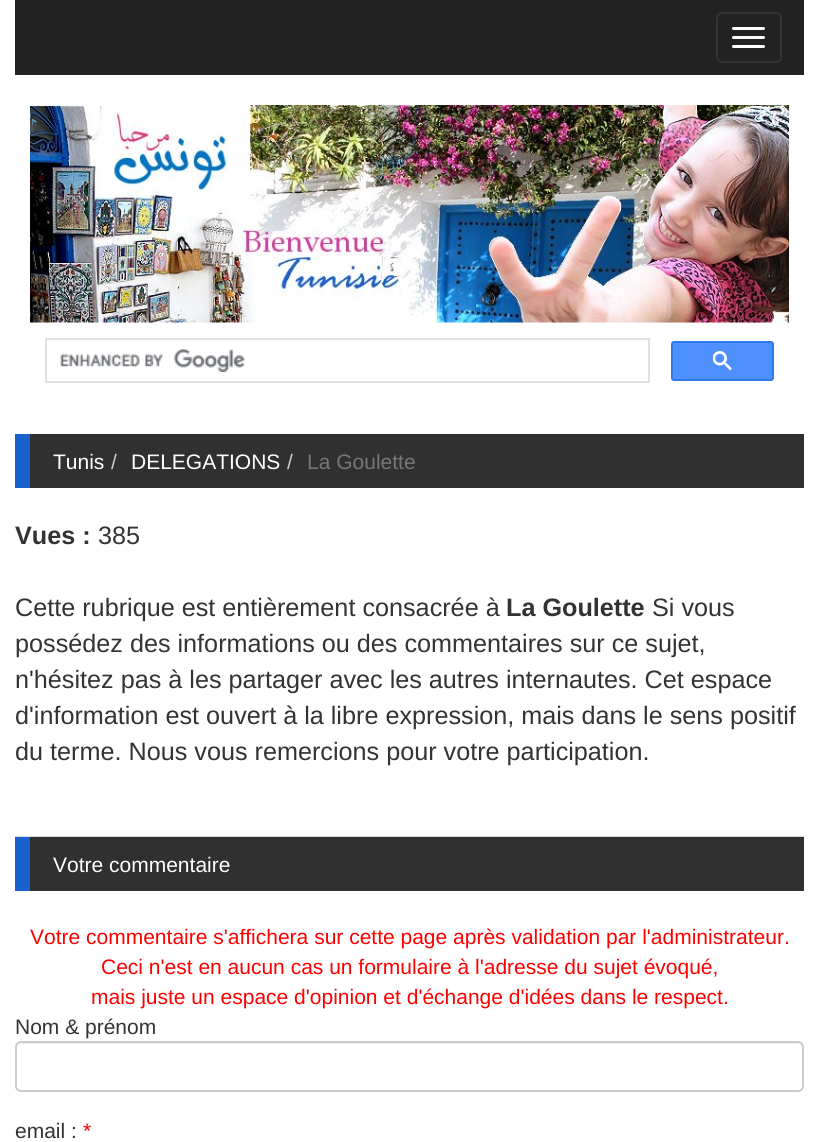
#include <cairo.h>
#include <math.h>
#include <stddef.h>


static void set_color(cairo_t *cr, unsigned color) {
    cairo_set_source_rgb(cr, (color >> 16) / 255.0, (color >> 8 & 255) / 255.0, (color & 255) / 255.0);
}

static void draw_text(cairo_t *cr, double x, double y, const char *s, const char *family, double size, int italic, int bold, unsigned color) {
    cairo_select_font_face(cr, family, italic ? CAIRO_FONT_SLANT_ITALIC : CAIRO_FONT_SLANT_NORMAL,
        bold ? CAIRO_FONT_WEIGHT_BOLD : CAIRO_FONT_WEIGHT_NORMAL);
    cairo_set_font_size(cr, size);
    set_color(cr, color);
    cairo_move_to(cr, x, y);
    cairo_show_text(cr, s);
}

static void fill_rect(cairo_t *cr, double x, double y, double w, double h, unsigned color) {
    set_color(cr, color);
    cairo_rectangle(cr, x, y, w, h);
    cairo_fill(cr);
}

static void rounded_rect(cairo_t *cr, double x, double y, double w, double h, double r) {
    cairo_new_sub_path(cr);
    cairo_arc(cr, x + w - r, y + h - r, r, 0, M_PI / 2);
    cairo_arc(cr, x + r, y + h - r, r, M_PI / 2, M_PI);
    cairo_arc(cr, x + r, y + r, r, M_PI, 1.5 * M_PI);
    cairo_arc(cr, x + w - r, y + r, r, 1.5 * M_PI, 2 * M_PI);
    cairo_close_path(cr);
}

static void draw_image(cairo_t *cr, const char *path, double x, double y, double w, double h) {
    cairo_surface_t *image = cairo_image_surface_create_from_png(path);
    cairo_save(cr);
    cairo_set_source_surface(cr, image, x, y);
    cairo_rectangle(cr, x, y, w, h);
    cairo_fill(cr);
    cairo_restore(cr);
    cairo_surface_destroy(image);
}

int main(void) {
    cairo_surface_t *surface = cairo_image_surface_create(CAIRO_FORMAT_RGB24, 819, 1142);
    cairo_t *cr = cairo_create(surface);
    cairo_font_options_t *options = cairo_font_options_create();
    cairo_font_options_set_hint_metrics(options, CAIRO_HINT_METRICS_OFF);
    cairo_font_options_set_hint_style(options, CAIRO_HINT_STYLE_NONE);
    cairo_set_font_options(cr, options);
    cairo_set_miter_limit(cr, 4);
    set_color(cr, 0xFFFFFF);
    cairo_paint(cr);
    fill_rect(cr, 15, 0, 789, 75, 0x222222);
    rounded_rect(cr, 717, 13, 64, 49, 5);
    set_color(cr, 0x333333);
    cairo_stroke(cr);
    set_color(cr, 0xFFFFFF);
    rounded_rect(cr, 732, 27, 33, 3, 1.5);
    cairo_fill(cr);
    rounded_rect(cr, 732, 36, 33, 3, 1.5);
    cairo_fill(cr);
    rounded_rect(cr, 732, 45, 33, 3, 1.5);
    cairo_fill(cr);
    draw_image(cr, "assets/img1.png", 30, 105, 759, 218);
    cairo_rectangle(cr, 46, 339, 603, 43);
    set_color(cr, 0xDFE1E5);
    cairo_stroke(cr);
    draw_image(cr, "assets/img2.png", 60, 349, 185, 23);
    set_color(cr, 0x4D90FE);
    rounded_rect(cr, 672, 342, 101, 38, 2);
    cairo_fill_preserve(cr);
    set_color(cr, 0x3079ED);
    cairo_stroke(cr);
    draw_image(cr, "assets/img3.png", 713, 351, 19, 20);
    fill_rect(cr, 30, 434, 774, 54, 0x303030);
    fill_rect(cr, 15, 434, 15, 54, 0x1861CE);
    draw_text(cr, 53, 469, "Tunis", "Liberation Sans", 21, 0, 0, 0xFFFFFF);
    draw_text(cr, 111, 469, "/", "Liberation Sans", 21, 0, 0, 0xCCCCCC);
    draw_text(cr, 131, 469, "DELEGATIONS", "Liberation Sans", 21, 0, 0, 0xFFFFFF);
    draw_text(cr, 287, 469, "/", "Liberation Sans", 21, 0, 0, 0xCCCCCC);
    draw_text(cr, 307, 469, "La Goulette", "Liberation Sans", 21, 0, 0, 0x777777);
    fill_rect(cr, 15, 836, 789, 1, 0xDDDDDD);
    draw_text(cr, 15, 544, "Vues :", "Liberation Sans", 25.2, 0, 1, 0x333333);
    draw_text(cr, 98, 544, "385", "Liberation Sans", 25.2, 0, 0, 0x333333);
    draw_text(cr, 15, 616, "Cette rubrique est entièrement consacrée à", "Liberation Sans", 25.2, 0, 0, 0x333333);
    draw_text(cr, 506, 616, "La Goulette", "Liberation Sans", 25.2, 0, 1, 0x333333);
    draw_text(cr, 652, 616, "Si vous", "Liberation Sans", 25.2, 0, 0, 0x333333);
    draw_text(cr, 15, 652, "possédez des informations ou des commentaires sur ce sujet,", "Liberation Sans", 25.2, 0, 0, 0x333333);
    draw_text(cr, 15, 688, "n'hésitez pas à les partager avec les autres internautes. Cet espace", "Liberation Sans", 25.2, 0, 0, 0x333333);
    draw_text(cr, 15, 724, "d'information est ouvert à la libre expression, mais dans le sens positif", "Liberation Sans", 25.2, 0, 0, 0x333333);
    draw_text(cr, 15, 760, "du terme. Nous vous remercions pour votre participation.", "Liberation Sans", 25.2, 0, 0, 0x333333);
    fill_rect(cr, 30, 837, 774, 54, 0x303030);
    fill_rect(cr, 15, 837, 15, 54, 0x1861CE);
    draw_text(cr, 53, 872, "Votre commentaire", "Liberation Sans", 21, 0, 0, 0xFFFFFF);
    draw_text(cr, 30, 944, "Votre commentaire s'affichera sur cette page après validation par l'administrateur.", "Liberation Sans", 21, 0, 0, 0xFF0000);
    draw_text(cr, 101, 974, "Ceci n'est en aucun cas un formulaire à l'adresse du sujet évoqué,", "Liberation Sans", 21, 0, 0, 0xFF0000);
    draw_text(cr, 91, 1004, "mais juste un espace d'opinion et d'échange d'idées dans le respect.", "Liberation Sans", 21, 0, 0, 0xFF0000);
    draw_text(cr, 15, 1034, "Nom & prénom", "Liberation Sans", 21, 0, 0, 0x333333);
    set_color(cr, 0xECECEC);
    cairo_new_path(cr);
    cairo_move_to(cr, 21, 1044);
    cairo_line_to(cr, 798, 1044);
    cairo_curve_to(cr, 800, 1044, 802, 1046, 802, 1048);
    cairo_line_to(cr, 802, 1089);
    cairo_curve_to(cr, 803, 1088, 803, 1087, 803, 1086);
    cairo_line_to(cr, 803, 1048);
    cairo_curve_to(cr, 803, 1045, 801, 1043, 798, 1043);
    cairo_line_to(cr, 22, 1043);
    cairo_curve_to(cr, 20, 1043, 19, 1044, 18, 1045);
    cairo_close_path(cr);
    cairo_fill(cr);
    rounded_rect(cr, 16, 1042, 787, 49, 5);
    set_color(cr, 0xCCCCCC);
    cairo_stroke(cr);
    draw_text(cr, 15, 1138, "email :", "Liberation Sans", 21, 0, 0, 0x333333);
    draw_text(cr, 83, 1138, "*", "Liberation Sans", 21, 0, 0, 0xFF0000);
    cairo_surface_write_to_png(surface, "output.png");
    cairo_font_options_destroy(options);
    cairo_destroy(cr);
    cairo_surface_destroy(surface);
    return 0;
}
